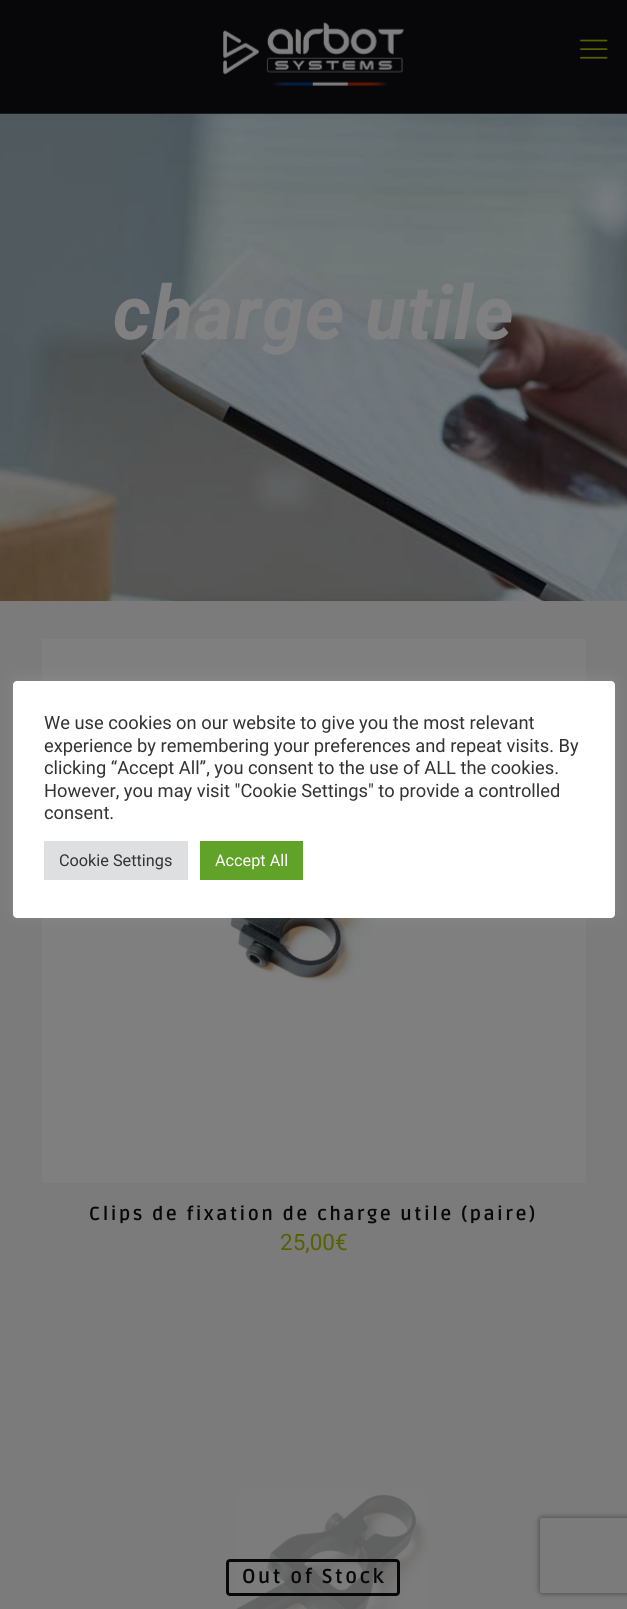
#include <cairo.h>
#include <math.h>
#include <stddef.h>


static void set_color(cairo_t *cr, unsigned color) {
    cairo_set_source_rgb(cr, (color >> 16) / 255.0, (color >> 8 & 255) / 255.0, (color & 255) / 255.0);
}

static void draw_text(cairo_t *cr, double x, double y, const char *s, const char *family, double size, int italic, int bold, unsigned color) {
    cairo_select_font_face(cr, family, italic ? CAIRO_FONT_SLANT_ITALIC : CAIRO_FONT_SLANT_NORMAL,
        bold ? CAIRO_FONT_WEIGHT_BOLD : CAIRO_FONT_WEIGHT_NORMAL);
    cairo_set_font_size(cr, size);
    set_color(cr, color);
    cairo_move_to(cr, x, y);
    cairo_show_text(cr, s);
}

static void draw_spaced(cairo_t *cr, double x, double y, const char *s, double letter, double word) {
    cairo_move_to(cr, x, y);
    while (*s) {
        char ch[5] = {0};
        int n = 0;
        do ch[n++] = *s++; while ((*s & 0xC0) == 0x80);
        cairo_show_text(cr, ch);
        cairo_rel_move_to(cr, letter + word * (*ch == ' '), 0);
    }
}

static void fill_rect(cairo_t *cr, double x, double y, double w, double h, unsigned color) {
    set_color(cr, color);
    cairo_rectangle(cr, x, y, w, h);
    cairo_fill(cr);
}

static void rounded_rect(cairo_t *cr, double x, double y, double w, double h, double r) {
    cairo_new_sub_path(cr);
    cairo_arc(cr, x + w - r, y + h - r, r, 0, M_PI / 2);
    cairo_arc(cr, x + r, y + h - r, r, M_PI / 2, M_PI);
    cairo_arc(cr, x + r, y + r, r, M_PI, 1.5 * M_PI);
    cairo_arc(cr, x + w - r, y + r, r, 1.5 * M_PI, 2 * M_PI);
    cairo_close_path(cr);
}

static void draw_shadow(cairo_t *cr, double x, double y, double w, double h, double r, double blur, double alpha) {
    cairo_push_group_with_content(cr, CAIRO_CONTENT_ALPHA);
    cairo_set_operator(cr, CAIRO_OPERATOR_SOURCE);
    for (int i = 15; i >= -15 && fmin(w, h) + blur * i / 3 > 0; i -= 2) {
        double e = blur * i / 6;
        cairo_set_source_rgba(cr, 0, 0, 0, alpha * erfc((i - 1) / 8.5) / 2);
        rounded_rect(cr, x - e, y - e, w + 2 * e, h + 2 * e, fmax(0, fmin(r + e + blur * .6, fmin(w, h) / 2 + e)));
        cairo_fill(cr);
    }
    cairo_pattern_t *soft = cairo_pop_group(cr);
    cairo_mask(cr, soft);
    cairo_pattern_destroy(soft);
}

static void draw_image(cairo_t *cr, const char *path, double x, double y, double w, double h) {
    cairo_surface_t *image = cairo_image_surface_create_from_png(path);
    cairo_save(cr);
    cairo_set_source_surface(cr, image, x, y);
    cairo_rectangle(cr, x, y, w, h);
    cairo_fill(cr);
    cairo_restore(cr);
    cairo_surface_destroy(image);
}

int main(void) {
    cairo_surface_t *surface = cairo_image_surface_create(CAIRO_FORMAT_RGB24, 627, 1609);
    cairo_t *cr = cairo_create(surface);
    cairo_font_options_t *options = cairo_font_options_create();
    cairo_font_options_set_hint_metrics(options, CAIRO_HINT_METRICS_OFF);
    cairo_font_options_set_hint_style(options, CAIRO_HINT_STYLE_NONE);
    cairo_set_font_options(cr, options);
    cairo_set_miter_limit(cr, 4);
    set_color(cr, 0x070709);
    cairo_paint(cr);
    draw_image(cr, "assets/img1.png", 223, 22, 181, 64);
    draw_image(cr, "assets/img2.png", 580, 39, 28, 20);
    draw_image(cr, "assets/img3.png", 0, 113, 627, 488);
    cairo_select_font_face(cr, "Roboto", CAIRO_FONT_SLANT_ITALIC, CAIRO_FONT_WEIGHT_BOLD);
    cairo_set_font_size(cr, 75);
    set_color(cr, 0x808080);
    draw_spaced(cr, 113, 339, "charge utile", 1.25, 0);
    fill_rect(cr, 0, 601, 627, 1008, 0x7B7B7B);
    draw_image(cr, "assets/img4.png", 42, 639, 544, 544);
    cairo_select_font_face(cr, "Ruda", CAIRO_FONT_SLANT_NORMAL, CAIRO_FONT_WEIGHT_BOLD);
    cairo_set_font_size(cr, 18.75);
    set_color(cr, 0x070709);
    draw_spaced(cr, 89, 1220, "Clips de fixation de charge utile (paire)", 2.5, 0);
    draw_text(cr, 280, 1250, "25,00€", "Roboto", 22.5, 0, 0, 0x586000);
    draw_image(cr, "assets/img5.png", 236, 1494, 192, 115);
    rounded_rect(cr, 227.5, 1560.5, 171, 34, 2.5);
    set_color(cr, 0x070709);
    cairo_set_line_width(cr, 3);
    cairo_stroke(cr);
    cairo_select_font_face(cr, "Ruda", CAIRO_FONT_SLANT_NORMAL, CAIRO_FONT_WEIGHT_BOLD);
    cairo_set_font_size(cr, 20);
    draw_spaced(cr, 242, 1583, "Out of Stock", 2.5, 0);
    set_color(cr, 0xACABAB);
    draw_shadow(cr, 13, 680, 602, 236, 4, 6, 0.3);
    set_color(cr, 0xFFFFFF);
    rounded_rect(cr, 13, 681, 602, 237, 4);
    cairo_fill(cr);
    draw_text(cr, 44, 729, "We use cookies on our website to give you the most relevant", "Roboto", 18.3, 0, 0, 0x333333);
    draw_text(cr, 44, 752, "experience by remembering your preferences and repeat visits. By", "Roboto", 18.3, 0, 0, 0x333333);
    draw_text(cr, 44, 774, "clicking “Accept All”, you consent to the use of ALL the cookies.", "Roboto", 18.3, 0, 0, 0x333333);
    draw_text(cr, 44, 797, "However, you may visit \"Cookie Settings\" to provide a controlled", "Roboto", 18.3, 0, 0, 0x333333);
    draw_text(cr, 44, 819, "consent.", "Roboto", 18.3, 0, 0, 0x333333);
    fill_rect(cr, 44, 841, 144, 39, 0xDEDFE0);
    draw_text(cr, 59, 866, "Cookie Settings", "Roboto", 16.25, 0, 0, 0x333333);
    fill_rect(cr, 200, 841, 103, 39, 0x61A229);
    draw_text(cr, 215, 866, "Accept All", "Roboto", 16.25, 0, 0, 0xFFFFFF);
    cairo_save(cr);
    cairo_set_fill_rule(cr, CAIRO_FILL_RULE_EVEN_ODD);
    cairo_new_path(cr);
    cairo_move_to(cr, 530, 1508);
    cairo_line_to(cr, 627, 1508);
    cairo_line_to(cr, 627, 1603);
    cairo_line_to(cr, 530, 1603);
    cairo_close_path(cr);
    cairo_move_to(cr, 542.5, 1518);
    cairo_line_to(cr, 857.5, 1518);
    cairo_curve_to(cr, 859, 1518, 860, 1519, 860, 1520.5);
    cairo_line_to(cr, 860, 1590.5);
    cairo_curve_to(cr, 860, 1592, 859, 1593, 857.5, 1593);
    cairo_line_to(cr, 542.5, 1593);
    cairo_curve_to(cr, 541, 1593, 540, 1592, 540, 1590.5);
    cairo_line_to(cr, 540, 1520.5);
    cairo_curve_to(cr, 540, 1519, 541, 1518, 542.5, 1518);
    cairo_close_path(cr);
    cairo_clip(cr);
    set_color(cr, 0x404040);
    draw_shadow(cr, 540, 1518, 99, 75, 2.5, 3, 1);
    cairo_restore(cr);
    cairo_surface_write_to_png(surface, "output.png");
    cairo_font_options_destroy(options);
    cairo_destroy(cr);
    cairo_surface_destroy(surface);
    return 0;
}
